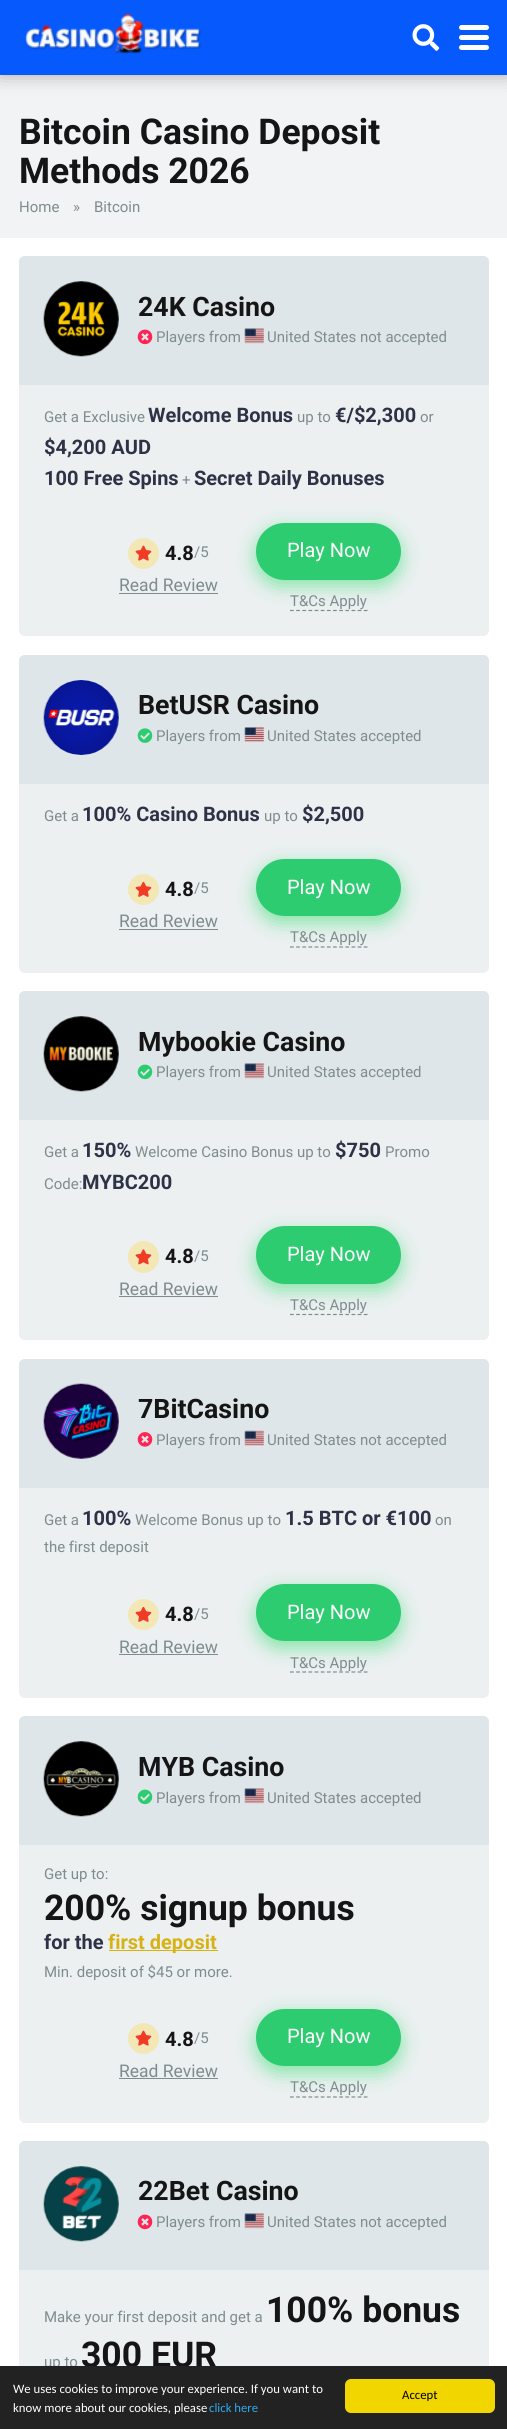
#include <cairo.h>
#include <math.h>
#include <stddef.h>


static void set_color(cairo_t *cr, unsigned color) {
    cairo_set_source_rgb(cr, (color >> 16) / 255.0, (color >> 8 & 255) / 255.0, (color & 255) / 255.0);
}

static void draw_text(cairo_t *cr, double x, double y, const char *s, const char *family, double size, int italic, int bold, unsigned color) {
    cairo_select_font_face(cr, family, italic ? CAIRO_FONT_SLANT_ITALIC : CAIRO_FONT_SLANT_NORMAL,
        bold ? CAIRO_FONT_WEIGHT_BOLD : CAIRO_FONT_WEIGHT_NORMAL);
    cairo_set_font_size(cr, size);
    set_color(cr, color);
    cairo_move_to(cr, x, y);
    cairo_show_text(cr, s);
}

static void fill_rect(cairo_t *cr, double x, double y, double w, double h, unsigned color) {
    set_color(cr, color);
    cairo_rectangle(cr, x, y, w, h);
    cairo_fill(cr);
}

static void rounded_rect(cairo_t *cr, double x, double y, double w, double h, double r) {
    cairo_new_sub_path(cr);
    cairo_arc(cr, x + w - r, y + h - r, r, 0, M_PI / 2);
    cairo_arc(cr, x + r, y + h - r, r, M_PI / 2, M_PI);
    cairo_arc(cr, x + r, y + r, r, M_PI, 1.5 * M_PI);
    cairo_arc(cr, x + w - r, y + r, r, 1.5 * M_PI, 2 * M_PI);
    cairo_close_path(cr);
}

static void draw_shadow(cairo_t *cr, double x, double y, double w, double h, double r, double blur, double alpha) {
    cairo_push_group_with_content(cr, CAIRO_CONTENT_ALPHA);
    cairo_set_operator(cr, CAIRO_OPERATOR_SOURCE);
    for (int i = 15; i >= -15 && fmin(w, h) + blur * i / 3 > 0; i -= 2) {
        double e = blur * i / 6;
        cairo_set_source_rgba(cr, 0, 0, 0, alpha * erfc((i - 1) / 8.5) / 2);
        rounded_rect(cr, x - e, y - e, w + 2 * e, h + 2 * e, fmax(0, fmin(r + e + blur * .6, fmin(w, h) / 2 + e)));
        cairo_fill(cr);
    }
    cairo_pattern_t *soft = cairo_pop_group(cr);
    cairo_mask(cr, soft);
    cairo_pattern_destroy(soft);
}

static void draw_image(cairo_t *cr, const char *path, double x, double y, double w, double h) {
    cairo_surface_t *image = cairo_image_surface_create_from_png(path);
    cairo_save(cr);
    cairo_set_source_surface(cr, image, x, y);
    cairo_rectangle(cr, x, y, w, h);
    cairo_fill(cr);
    cairo_restore(cr);
    cairo_surface_destroy(image);
}

int main(void) {
    cairo_surface_t *surface = cairo_image_surface_create(CAIRO_FORMAT_RGB24, 507, 2429);
    cairo_t *cr = cairo_create(surface);
    cairo_font_options_t *options = cairo_font_options_create();
    cairo_font_options_set_hint_metrics(options, CAIRO_HINT_METRICS_OFF);
    cairo_font_options_set_hint_style(options, CAIRO_HINT_STYLE_NONE);
    cairo_set_font_options(cr, options);
    cairo_set_miter_limit(cr, 4);
    set_color(cr, 0xFFFFFF);
    cairo_paint(cr);
    fill_rect(cr, 0, 75, 507, 163, 0xF1F3F4);
    set_color(cr, 0x000000);
    draw_shadow(cr, 0, 0, 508, 75, 0, 9.5, 0.3);
    fill_rect(cr, 0, 0, 507, 75, 0x0659FD);
    draw_image(cr, "assets/img1.png", 25, 13, 177, 41);
    draw_image(cr, "assets/img2.png", 412, 24, 28, 27);
    set_color(cr, 0xFFFFFF);
    rounded_rect(cr, 459, 25, 30, 5, 2.5);
    cairo_fill(cr);
    rounded_rect(cr, 459, 35, 30, 5, 2.5);
    cairo_fill(cr);
    rounded_rect(cr, 459, 45, 30, 5, 2.5);
    cairo_fill(cr);
    draw_text(cr, 19, 144, "Bitcoin Casino Deposit", "Roboto", 35.5, 0, 1, 0x151515);
    draw_text(cr, 19, 183, "Methods 2026", "Roboto", 35.5, 0, 1, 0x151515);
    draw_text(cr, 19, 212, "Home", "Roboto", 15, 0, 0, 0x7F8C8D);
    draw_text(cr, 73, 212, "»", "Roboto", 15, 0, 0, 0x7F8C8D);
    draw_text(cr, 94, 212, "Bitcoin", "Roboto", 15, 0, 0, 0x7F8C8D);
    set_color(cr, 0xECF0F1);
    rounded_rect(cr, 19, 256, 470, 380, 6);
    cairo_fill(cr);
    set_color(cr, 0xDFE6E9);
    cairo_new_path(cr);
    cairo_move_to(cr, 25, 256);
    cairo_line_to(cr, 483, 256);
    cairo_curve_to(cr, 486.5, 256, 489, 258.5, 489, 262);
    cairo_line_to(cr, 489, 385);
    cairo_line_to(cr, 19, 385);
    cairo_line_to(cr, 19, 262);
    cairo_curve_to(cr, 19, 258.5, 21.5, 256, 25, 256);
    cairo_close_path(cr);
    cairo_fill(cr);
    draw_image(cr, "assets/img3.png", 43, 281, 76, 76);
    draw_text(cr, 138, 316, "24K Casino", "Roboto", 26.75, 0, 1, 0x151515);
    draw_image(cr, "assets/img4.png", 137, 329, 16, 16);
    draw_text(cr, 156, 342, "Players from", "Roboto", 15, 0, 0, 0x7F8C8D);
    draw_image(cr, "assets/img5.png", 244, 328, 20, 16);
    draw_text(cr, 267, 342, "United States not accepted", "Roboto", 15, 0, 0, 0x7F8C8D);
    draw_text(cr, 44, 422, "Get a Exclusive", "Roboto", 15, 0, 0, 0x7F8C8D);
    draw_text(cr, 148, 422, "Welcome Bonus", "Roboto", 20, 0, 1, 0x2E3246);
    draw_text(cr, 297, 422, "up to", "Roboto", 15, 0, 0, 0x7F8C8D);
    draw_text(cr, 335, 422, "€/$2,300", "Roboto", 20, 0, 1, 0x2E3246);
    draw_text(cr, 420, 422, "or", "Roboto", 15, 0, 0, 0x7F8C8D);
    draw_text(cr, 44, 454, "$4,200 AUD", "Roboto", 20, 0, 1, 0x2E3246);
    draw_text(cr, 44, 485, "100 Free Spins", "Roboto", 20, 0, 1, 0x2E3246);
    draw_text(cr, 182, 485, "+", "Roboto", 15, 0, 0, 0x7F8C8D);
    draw_text(cr, 194, 485, "Secret Daily Bonuses", "Roboto", 20, 0, 1, 0x2E3246);
    set_color(cr, 0xF2E7B5);
    cairo_new_path(cr);
    cairo_arc(cr, 143.5, 553.5, 15.5, 0, 2 * M_PI);
    cairo_fill(cr);
    draw_image(cr, "assets/img6.png", 135, 545, 17, 16);
    draw_text(cr, 165, 560, "4.8", "Roboto", 20, 0, 1, 0x151515);
    draw_text(cr, 194, 557, "/5", "Roboto", 15, 0, 0, 0x7F8C8D);
    draw_text(cr, 119, 591, "Read Review", "Roboto", 17.5, 0, 0, 0x7F8C8D);
    fill_rect(cr, 119, 593, 99, 1, 0x7F8C8D);
    set_color(cr, 0x2DDD6C);
    draw_shadow(cr, 256, 529, 145, 57, 28.5, 9.5, 0.55);
    set_color(cr, 0x2ECC71);
    rounded_rect(cr, 256, 523, 145, 57, 28.5);
    cairo_fill(cr);
    draw_text(cr, 287, 557, "Play Now", "Roboto", 20, 0, 0, 0xFFFFFF);
    cairo_new_path(cr);
    cairo_move_to(cr, 290, 610.5);
    cairo_line_to(cr, 367.5, 610.5);
    set_color(cr, 0x7F8C8D);
    cairo_set_line_width(cr, 1.2);
    cairo_set_dash(cr, (double[]){3.75, 2.4}, 2, 0);
    cairo_stroke(cr);
    draw_text(cr, 290, 606, "T&Cs Apply", "Roboto", 15, 0, 0, 0x7F8C8D);
    set_color(cr, 0xECF0F1);
    rounded_rect(cr, 19, 655, 470, 318, 6);
    cairo_fill(cr);
    set_color(cr, 0xDFE6E9);
    cairo_new_path(cr);
    cairo_move_to(cr, 25, 655);
    cairo_line_to(cr, 483, 655);
    cairo_curve_to(cr, 486.5, 655, 489, 657.5, 489, 661);
    cairo_line_to(cr, 489, 784);
    cairo_line_to(cr, 19, 784);
    cairo_line_to(cr, 19, 661);
    cairo_curve_to(cr, 19, 657.5, 21.5, 655, 25, 655);
    cairo_close_path(cr);
    cairo_fill(cr);
    draw_image(cr, "assets/img7.png", 43, 680, 76, 75);
    draw_text(cr, 138, 714, "BetUSR Casino", "Roboto", 26.75, 0, 1, 0x151515);
    draw_image(cr, "assets/img8.png", 137, 728, 16, 15);
    draw_text(cr, 156, 741, "Players from", "Roboto", 15, 0, 0, 0x7F8C8D);
    draw_image(cr, "assets/img9.png", 244, 727, 20, 15);
    draw_text(cr, 267, 741, "United States accepted", "Roboto", 15, 0, 0, 0x7F8C8D);
    draw_text(cr, 44, 821, "Get a", "Roboto", 15, 0, 0, 0x7F8C8D);
    draw_text(cr, 82, 821, "100% Casino Bonus", "Roboto", 20, 0, 1, 0x2E3246);
    draw_text(cr, 264, 821, "up to", "Roboto", 15, 0, 0, 0x7F8C8D);
    draw_text(cr, 302, 821, "$2,500", "Roboto", 20, 0, 1, 0x2E3246);
    set_color(cr, 0xF2E7B5);
    cairo_new_path(cr);
    cairo_arc(cr, 143.5, 889.5, 15.5, 0, 2 * M_PI);
    cairo_fill(cr);
    draw_image(cr, "assets/img10.png", 135, 881, 17, 16);
    draw_text(cr, 165, 896, "4.8", "Roboto", 20, 0, 1, 0x151515);
    draw_text(cr, 194, 893, "/5", "Roboto", 15, 0, 0, 0x7F8C8D);
    draw_text(cr, 119, 927, "Read Review", "Roboto", 17.5, 0, 0, 0x7F8C8D);
    fill_rect(cr, 119, 929, 99, 1, 0x7F8C8D);
    set_color(cr, 0x2DDD6C);
    draw_shadow(cr, 256, 865, 145, 58, 29, 9.5, 0.55);
    set_color(cr, 0x2ECC71);
    rounded_rect(cr, 256, 859, 145, 57, 28.5);
    cairo_fill(cr);
    draw_text(cr, 287, 894, "Play Now", "Roboto", 20, 0, 0, 0xFFFFFF);
    draw_text(cr, 290, 942, "T&Cs Apply", "Roboto", 15, 0, 0, 0x7F8C8D);
    cairo_new_path(cr);
    cairo_move_to(cr, 290, 947);
    cairo_line_to(cr, 367.5, 947);
    cairo_stroke(cr);
    set_color(cr, 0xECF0F1);
    rounded_rect(cr, 19, 991, 470, 349, 6);
    cairo_fill(cr);
    set_color(cr, 0xDFE6E9);
    cairo_new_path(cr);
    cairo_move_to(cr, 25, 991);
    cairo_line_to(cr, 483, 991);
    cairo_curve_to(cr, 486.5, 991, 489, 993.5, 489, 997);
    cairo_line_to(cr, 489, 1120);
    cairo_line_to(cr, 19, 1120);
    cairo_line_to(cr, 19, 997);
    cairo_curve_to(cr, 19, 993.5, 21.5, 991, 25, 991);
    cairo_close_path(cr);
    cairo_fill(cr);
    draw_image(cr, "assets/img11.png", 43, 1016, 76, 76);
    draw_text(cr, 138, 1051, "Mybookie Casino", "Roboto", 26.75, 0, 1, 0x151515);
    draw_image(cr, "assets/img12.png", 137, 1064, 16, 16);
    draw_text(cr, 156, 1077, "Players from", "Roboto", 15, 0, 0, 0x7F8C8D);
    draw_image(cr, "assets/img5.png", 244, 1063, 20, 16);
    draw_text(cr, 267, 1077, "United States accepted", "Roboto", 15, 0, 0, 0x7F8C8D);
    draw_text(cr, 44, 1157, "Get a", "Roboto", 15, 0, 0, 0x7F8C8D);
    draw_text(cr, 82, 1157, "150%", "Roboto", 20, 0, 1, 0x2E3246);
    draw_text(cr, 135, 1157, "Welcome Casino Bonus up to", "Roboto", 15, 0, 0, 0x7F8C8D);
    draw_text(cr, 335, 1157, "$750", "Roboto", 20, 0, 1, 0x2E3246);
    draw_text(cr, 385, 1157, "Promo", "Roboto", 15, 0, 0, 0x7F8C8D);
    draw_text(cr, 44, 1189, "Code:", "Roboto", 15, 0, 0, 0x7F8C8D);
    draw_text(cr, 82, 1189, "MYBC200", "Roboto", 20, 0, 1, 0x2E3246);
    set_color(cr, 0xF2E7B5);
    rounded_rect(cr, 128, 1241, 31, 32, 15.5);
    cairo_fill(cr);
    draw_image(cr, "assets/img13.png", 135, 1249, 17, 16);
    draw_text(cr, 165, 1263, "4.8", "Roboto", 20, 0, 1, 0x151515);
    draw_text(cr, 194, 1261, "/5", "Roboto", 15, 0, 0, 0x7F8C8D);
    draw_text(cr, 119, 1295, "Read Review", "Roboto", 17.5, 0, 0, 0x7F8C8D);
    fill_rect(cr, 119, 1296, 99, 1, 0x7F8C8D);
    set_color(cr, 0x2DDD6C);
    draw_shadow(cr, 256, 1233, 145, 57, 28.5, 9.5, 0.55);
    set_color(cr, 0x2ECC71);
    rounded_rect(cr, 256, 1226, 145, 58, 29);
    cairo_fill(cr);
    draw_text(cr, 287, 1261, "Play Now", "Roboto", 20, 0, 0, 0xFFFFFF);
    cairo_new_path(cr);
    cairo_move_to(cr, 290, 1314.5);
    cairo_line_to(cr, 367.5, 1314.5);
    set_color(cr, 0x7F8C8D);
    cairo_stroke(cr);
    draw_text(cr, 290, 1310, "T&Cs Apply", "Roboto", 15, 0, 0, 0x7F8C8D);
    set_color(cr, 0xECF0F1);
    rounded_rect(cr, 19, 1359, 470, 339, 6);
    cairo_fill(cr);
    set_color(cr, 0xDFE6E9);
    cairo_new_path(cr);
    cairo_move_to(cr, 25, 1359);
    cairo_line_to(cr, 483, 1359);
    cairo_curve_to(cr, 486.5, 1359, 489, 1361.5, 489, 1365);
    cairo_line_to(cr, 489, 1488);
    cairo_line_to(cr, 19, 1488);
    cairo_line_to(cr, 19, 1365);
    cairo_curve_to(cr, 19, 1361.5, 21.5, 1359, 25, 1359);
    cairo_close_path(cr);
    cairo_fill(cr);
    draw_image(cr, "assets/img14.png", 43, 1383, 76, 76);
    draw_text(cr, 138, 1418, "7BitCasino", "Roboto", 26.75, 0, 1, 0x151515);
    draw_image(cr, "assets/img15.png", 137, 1432, 16, 15);
    draw_text(cr, 156, 1445, "Players from", "Roboto", 15, 0, 0, 0x7F8C8D);
    draw_image(cr, "assets/img16.png", 244, 1430, 20, 16);
    draw_text(cr, 267, 1445, "United States not accepted", "Roboto", 15, 0, 0, 0x7F8C8D);
    draw_text(cr, 44, 1525, "Get a", "Roboto", 15, 0, 0, 0x7F8C8D);
    draw_text(cr, 82, 1525, "100%", "Roboto", 20, 0, 1, 0x2E3246);
    draw_text(cr, 135, 1525, "Welcome Bonus up to", "Roboto", 15, 0, 0, 0x7F8C8D);
    draw_text(cr, 285, 1525, "1.5 BTC or €100", "Roboto", 20, 0, 1, 0x2E3246);
    draw_text(cr, 435, 1525, "on", "Roboto", 15, 0, 0, 0x7F8C8D);
    draw_text(cr, 44, 1552, "the first deposit", "Roboto", 15, 0, 0, 0x7F8C8D);
    set_color(cr, 0xF2E7B5);
    cairo_new_path(cr);
    cairo_arc(cr, 143.5, 1614.5, 15.5, 0, 2 * M_PI);
    cairo_fill(cr);
    draw_image(cr, "assets/img10.png", 135, 1606, 17, 16);
    draw_text(cr, 165, 1621, "4.8", "Roboto", 20, 0, 1, 0x151515);
    draw_text(cr, 194, 1619, "/5", "Roboto", 15, 0, 0, 0x7F8C8D);
    draw_text(cr, 119, 1653, "Read Review", "Roboto", 17.5, 0, 0, 0x7F8C8D);
    fill_rect(cr, 119, 1654, 99, 1, 0x7F8C8D);
    set_color(cr, 0x2DDD6C);
    draw_shadow(cr, 256, 1590, 145, 58, 29, 9.5, 0.55);
    set_color(cr, 0x2ECC71);
    rounded_rect(cr, 256, 1584, 145, 57, 28.5);
    cairo_fill(cr);
    draw_text(cr, 287, 1619, "Play Now", "Roboto", 20, 0, 0, 0xFFFFFF);
    cairo_new_path(cr);
    cairo_move_to(cr, 290, 1672);
    cairo_line_to(cr, 367.5, 1672);
    set_color(cr, 0x7F8C8D);
    cairo_stroke(cr);
    draw_text(cr, 290, 1668, "T&Cs Apply", "Roboto", 15, 0, 0, 0x7F8C8D);
    set_color(cr, 0xECF0F1);
    rounded_rect(cr, 19, 1716, 470, 407, 6);
    cairo_fill(cr);
    set_color(cr, 0xDFE6E9);
    cairo_new_path(cr);
    cairo_move_to(cr, 25, 1716);
    cairo_line_to(cr, 483, 1716);
    cairo_curve_to(cr, 486.5, 1716, 489, 1718.5, 489, 1722);
    cairo_line_to(cr, 489, 1845);
    cairo_line_to(cr, 19, 1845);
    cairo_line_to(cr, 19, 1722);
    cairo_curve_to(cr, 19, 1718.5, 21.5, 1716, 25, 1716);
    cairo_close_path(cr);
    cairo_fill(cr);
    draw_image(cr, "assets/img17.png", 43, 1741, 76, 76);
    draw_text(cr, 138, 1776, "MYB Casino", "Roboto", 26.75, 0, 1, 0x151515);
    draw_image(cr, "assets/img12.png", 137, 1789, 16, 16);
    draw_text(cr, 156, 1803, "Players from", "Roboto", 15, 0, 0, 0x7F8C8D);
    draw_image(cr, "assets/img5.png", 244, 1788, 20, 16);
    draw_text(cr, 267, 1803, "United States accepted", "Roboto", 15, 0, 0, 0x7F8C8D);
    draw_text(cr, 44, 1879, "Get up to:", "Roboto", 15, 0, 0, 0x7F8C8D);
    draw_text(cr, 44, 1920, "200% signup bonus", "Roboto", 35.5, 0, 1, 0x151515);
    draw_text(cr, 44, 1949, "for the", "Roboto", 20, 0, 1, 0x2E3246);
    fill_rect(cr, 109, 1950, 109, 1, 0xD6B213);
    draw_text(cr, 108, 1949, "first deposit", "Roboto", 20, 0, 1, 0xD6B213);
    draw_text(cr, 44, 1977, "Min. deposit of $45 or more.", "Roboto", 15, 0, 0, 0x7F8C8D);
    set_color(cr, 0xF2E7B5);
    cairo_new_path(cr);
    cairo_arc(cr, 143.5, 2038.5, 15.5, 0, 2 * M_PI);
    cairo_fill(cr);
    draw_image(cr, "assets/img6.png", 135, 2030, 17, 16);
    draw_text(cr, 165, 2046, "4.8", "Roboto", 20, 0, 1, 0x151515);
    draw_text(cr, 194, 2043, "/5", "Roboto", 15, 0, 0, 0x7F8C8D);
    draw_text(cr, 119, 2077, "Read Review", "Roboto", 17.5, 0, 0, 0x7F8C8D);
    fill_rect(cr, 119, 2078, 99, 1, 0x7F8C8D);
    set_color(cr, 0x2DDD6C);
    draw_shadow(cr, 256, 2015, 145, 58, 29, 9.5, 0.55);
    set_color(cr, 0x2ECC71);
    rounded_rect(cr, 256, 2009, 145, 57, 28.5);
    cairo_fill(cr);
    draw_text(cr, 287, 2043, "Play Now", "Roboto", 20, 0, 0, 0xFFFFFF);
    draw_text(cr, 290, 2092, "T&Cs Apply", "Roboto", 15, 0, 0, 0x7F8C8D);
    cairo_new_path(cr);
    cairo_move_to(cr, 290, 2097);
    cairo_line_to(cr, 367.5, 2097);
    cairo_stroke(cr);
    set_color(cr, 0xECF0F1);
    rounded_rect(cr, 19, 2141, 470, 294, 6);
    cairo_fill(cr);
    set_color(cr, 0xDFE6E9);
    cairo_new_path(cr);
    cairo_move_to(cr, 25, 2141);
    cairo_line_to(cr, 483, 2141);
    cairo_curve_to(cr, 486.5, 2141, 489, 2143.5, 489, 2147);
    cairo_line_to(cr, 489, 2270);
    cairo_line_to(cr, 19, 2270);
    cairo_line_to(cr, 19, 2147);
    cairo_curve_to(cr, 19, 2143.5, 21.5, 2141, 25, 2141);
    cairo_close_path(cr);
    cairo_fill(cr);
    draw_image(cr, "assets/img18.png", 43, 2166, 76, 76);
    draw_text(cr, 138, 2200, "22Bet Casino", "Roboto", 26.75, 0, 1, 0x151515);
    draw_image(cr, "assets/img4.png", 137, 2214, 16, 16);
    draw_text(cr, 156, 2227, "Players from", "Roboto", 15, 0, 0, 0x7F8C8D);
    draw_image(cr, "assets/img5.png", 244, 2213, 20, 16);
    draw_text(cr, 267, 2227, "United States not accepted", "Roboto", 15, 0, 0, 0x7F8C8D);
    draw_text(cr, 44, 2322, "Make your first deposit and get a", "Roboto", 15, 0, 0, 0x7F8C8D);
    draw_text(cr, 266, 2322, "100% bonus", "Roboto", 35.5, 0, 1, 0x151515);
    draw_text(cr, 44, 2367, "up to", "Roboto", 15, 0, 0, 0x7F8C8D);
    draw_text(cr, 81, 2367, "300 EUR", "Roboto", 35.5, 0, 1, 0x151515);
    fill_rect(cr, 0, 2366, 507, 63, 0x222222);
    draw_text(cr, 13, 2393, "We uses cookies to improve your experience. If you want to", "Carlito", 12.75, 0, 0, 0xFFFFFF);
    draw_text(cr, 13, 2412, "know more about our cookies, please", "Carlito", 12.75, 0, 0, 0xFFFFFF);
    draw_text(cr, 209, 2412, "click here", "Carlito", 12.75, 0, 0, 0x31A8F0);
    set_color(cr, 0xF1D600);
    rounded_rect(cr, 345, 2379, 150, 34, 6);
    cairo_fill(cr);
    draw_text(cr, 402, 2399, "Accept", "Carlito", 12.75, 0, 0, 0x000000);
    cairo_surface_write_to_png(surface, "output.png");
    cairo_font_options_destroy(options);
    cairo_destroy(cr);
    cairo_surface_destroy(surface);
    return 0;
}
